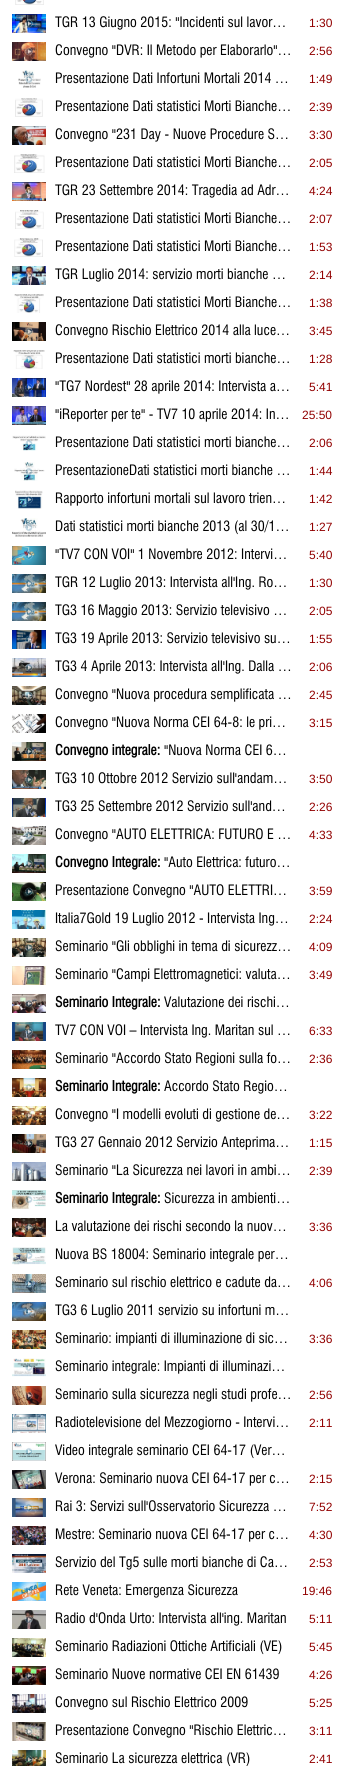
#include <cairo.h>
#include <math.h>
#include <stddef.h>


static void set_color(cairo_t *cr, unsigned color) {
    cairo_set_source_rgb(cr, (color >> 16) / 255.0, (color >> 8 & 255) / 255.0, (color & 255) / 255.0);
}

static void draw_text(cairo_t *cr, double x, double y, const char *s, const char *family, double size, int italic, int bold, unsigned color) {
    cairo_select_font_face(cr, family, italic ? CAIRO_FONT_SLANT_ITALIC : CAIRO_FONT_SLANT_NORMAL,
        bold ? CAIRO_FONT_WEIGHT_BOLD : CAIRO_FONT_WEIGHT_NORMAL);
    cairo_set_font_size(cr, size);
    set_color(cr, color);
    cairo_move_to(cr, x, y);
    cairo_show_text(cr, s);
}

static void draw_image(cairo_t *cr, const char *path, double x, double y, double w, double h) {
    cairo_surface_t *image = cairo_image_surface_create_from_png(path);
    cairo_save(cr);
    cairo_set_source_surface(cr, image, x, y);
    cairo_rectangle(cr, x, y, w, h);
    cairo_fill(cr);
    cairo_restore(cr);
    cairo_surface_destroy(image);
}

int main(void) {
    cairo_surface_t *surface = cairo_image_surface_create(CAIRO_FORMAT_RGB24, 344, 1766);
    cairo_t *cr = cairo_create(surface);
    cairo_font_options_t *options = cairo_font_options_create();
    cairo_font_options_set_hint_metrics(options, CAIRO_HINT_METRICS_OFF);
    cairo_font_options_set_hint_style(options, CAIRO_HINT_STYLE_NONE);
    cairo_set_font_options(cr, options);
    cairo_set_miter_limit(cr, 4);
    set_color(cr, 0xFFFFFF);
    cairo_paint(cr);
    draw_image(cr, "assets/img1.png", 15, 0, 29, 5);
    draw_image(cr, "assets/img2.png", 12, 14, 34, 19);
    draw_text(cr, 55, 27, "TGR 13 Giugno 2015: \"Incidenti sul lavor…", "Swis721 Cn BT", 14, 0, 0, 0x000000);
    draw_text(cr, 309, 27, "1:30", "Liberation Sans", 12, 0, 0, 0x910000);
    draw_image(cr, "assets/img3.png", 12, 42, 34, 19);
    draw_text(cr, 55, 55, "Convegno \"DVR: Il Metodo per Elaborarlo\"…", "Swis721 Cn BT", 14, 0, 0, 0x000000);
    draw_text(cr, 309, 55, "2:56", "Liberation Sans", 12, 0, 0, 0x910000);
    draw_image(cr, "assets/img4.png", 18, 70, 23, 18);
    draw_text(cr, 55, 83, "Presentazione Dati Infortuni Mortali 2014 …", "Swis721 Cn BT", 14, 0, 0, 0x000000);
    draw_text(cr, 309, 83, "1:49", "Liberation Sans", 12, 0, 0, 0x910000);
    draw_image(cr, "assets/img5.png", 15, 98, 28, 19);
    draw_text(cr, 55, 111, "Presentazione Dati statistici Morti Bianche…", "Swis721 Cn BT", 14, 0, 0, 0x000000);
    draw_text(cr, 309, 111, "2:39", "Liberation Sans", 12, 0, 0, 0x910000);
    draw_image(cr, "assets/img6.png", 12, 126, 34, 19);
    draw_text(cr, 55, 139, "Convegno \"231 Day - Nuove Procedure S…", "Swis721 Cn BT", 14, 0, 0, 0x000000);
    draw_text(cr, 309, 139, "3:30", "Liberation Sans", 12, 0, 0, 0x910000);
    draw_image(cr, "assets/img7.png", 14, 154, 31, 19);
    draw_text(cr, 55, 167, "Presentazione Dati statistici Morti Bianche…", "Swis721 Cn BT", 14, 0, 0, 0x000000);
    draw_text(cr, 309, 167, "2:05", "Liberation Sans", 12, 0, 0, 0x910000);
    draw_image(cr, "assets/img8.png", 12, 182, 34, 19);
    draw_text(cr, 55, 195, "TGR 23 Settembre 2014: Tragedia ad Adr…", "Swis721 Cn BT", 14, 0, 0, 0x000000);
    draw_text(cr, 309, 195, "4:24", "Liberation Sans", 12, 0, 0, 0x910000);
    draw_image(cr, "assets/img9.png", 15, 210, 29, 19);
    draw_text(cr, 55, 223, "Presentazione Dati statistici Morti Bianche…", "Swis721 Cn BT", 14, 0, 0, 0x000000);
    draw_text(cr, 309, 223, "2:07", "Liberation Sans", 12, 0, 0, 0x910000);
    draw_image(cr, "assets/img10.png", 14, 238, 29, 19);
    draw_text(cr, 55, 251, "Presentazione Dati statistici Morti Bianche…", "Swis721 Cn BT", 14, 0, 0, 0x000000);
    draw_text(cr, 309, 251, "1:53", "Liberation Sans", 12, 0, 0, 0x910000);
    draw_image(cr, "assets/img11.png", 12, 266, 34, 19);
    draw_text(cr, 55, 279, "TGR Luglio 2014: servizio morti bianche …", "Swis721 Cn BT", 14, 0, 0, 0x000000);
    draw_text(cr, 309, 279, "2:14", "Liberation Sans", 12, 0, 0, 0x910000);
    draw_image(cr, "assets/img12.png", 14, 294, 30, 19);
    draw_text(cr, 55, 307, "Presentazione Dati statistici Morti Bianche…", "Swis721 Cn BT", 14, 0, 0, 0x000000);
    draw_text(cr, 309, 307, "1:38", "Liberation Sans", 12, 0, 0, 0x910000);
    draw_image(cr, "assets/img13.png", 12, 322, 34, 19);
    draw_text(cr, 55, 335, "Convegno Rischio Elettrico 2014 alla luce…", "Swis721 Cn BT", 14, 0, 0, 0x000000);
    draw_text(cr, 309, 335, "3:45", "Liberation Sans", 12, 0, 0, 0x910000);
    draw_image(cr, "assets/img14.png", 13, 350, 32, 19);
    draw_text(cr, 55, 363, "Presentazione Dati statistici morti bianche…", "Swis721 Cn BT", 14, 0, 0, 0x000000);
    draw_text(cr, 309, 363, "1:28", "Liberation Sans", 12, 0, 0, 0x910000);
    draw_image(cr, "assets/img15.png", 12, 378, 34, 19);
    draw_text(cr, 55, 391, "\"TG7 Nordest\" 28 aprile 2014: Intervista a…", "Swis721 Cn BT", 14, 0, 0, 0x000000);
    draw_text(cr, 309, 391, "5:41", "Liberation Sans", 12, 0, 0, 0x910000);
    draw_image(cr, "assets/img16.png", 12, 406, 34, 19);
    draw_text(cr, 55, 419, "\"iReporter per te\" - TV7 10 aprile 2014: In…", "Swis721 Cn BT", 14, 0, 0, 0x000000);
    draw_text(cr, 302, 419, "25:50", "Liberation Sans", 12, 0, 0, 0x910000);
    draw_image(cr, "assets/img17.png", 12, 435, 34, 16);
    draw_text(cr, 55, 447, "Presentazione Dati statistici morti bianche…", "Swis721 Cn BT", 14, 0, 0, 0x000000);
    draw_text(cr, 309, 447, "2:06", "Liberation Sans", 12, 0, 0, 0x910000);
    draw_image(cr, "assets/img18.png", 14, 462, 31, 19);
    draw_text(cr, 55, 475, "PresentazioneDati statistici morti bianche …", "Swis721 Cn BT", 14, 0, 0, 0x000000);
    draw_text(cr, 309, 475, "1:44", "Liberation Sans", 12, 0, 0, 0x910000);
    draw_image(cr, "assets/img19.png", 15, 490, 28, 19);
    draw_text(cr, 55, 503, "Rapporto infortuni mortali sul lavoro trien…", "Swis721 Cn BT", 14, 0, 0, 0x000000);
    draw_text(cr, 309, 503, "1:42", "Liberation Sans", 12, 0, 0, 0x910000);
    draw_image(cr, "assets/img20.png", 12, 518, 34, 19);
    draw_text(cr, 55, 531, "Dati statistici morti bianche 2013 (al 30/1…", "Swis721 Cn BT", 14, 0, 0, 0x000000);
    draw_text(cr, 309, 531, "1:27", "Liberation Sans", 12, 0, 0, 0x910000);
    draw_image(cr, "assets/img21.png", 12, 546, 34, 19);
    draw_text(cr, 55, 559, "\"TV7 CON VOI\" 1 Novembre 2012: Intervi…", "Swis721 Cn BT", 14, 0, 0, 0x000000);
    draw_text(cr, 309, 559, "5:40", "Liberation Sans", 12, 0, 0, 0x910000);
    draw_image(cr, "assets/img22.png", 12, 574, 34, 19);
    draw_text(cr, 55, 587, "TGR 12 Luglio 2013: Intervista all'Ing. Ro…", "Swis721 Cn BT", 14, 0, 0, 0x000000);
    draw_text(cr, 309, 587, "1:30", "Liberation Sans", 12, 0, 0, 0x910000);
    draw_image(cr, "assets/img22.png", 12, 602, 34, 19);
    draw_text(cr, 55, 615, "TG3 16 Maggio 2013: Servizio televisivo …", "Swis721 Cn BT", 14, 0, 0, 0x000000);
    draw_text(cr, 309, 615, "2:05", "Liberation Sans", 12, 0, 0, 0x910000);
    draw_image(cr, "assets/img23.png", 12, 630, 34, 19);
    draw_text(cr, 55, 643, "TG3 19 Aprile 2013: Servizio televisivo su…", "Swis721 Cn BT", 14, 0, 0, 0x000000);
    draw_text(cr, 309, 643, "1:55", "Liberation Sans", 12, 0, 0, 0x910000);
    draw_image(cr, "assets/img24.png", 12, 658, 34, 19);
    draw_text(cr, 55, 671, "TG3 4 Aprile 2013: Intervista all'Ing. Dalla …", "Swis721 Cn BT", 14, 0, 0, 0x000000);
    draw_text(cr, 309, 671, "2:06", "Liberation Sans", 12, 0, 0, 0x910000);
    draw_image(cr, "assets/img25.png", 12, 686, 34, 19);
    draw_text(cr, 55, 699, "Convegno \"Nuova procedura semplificata …", "Swis721 Cn BT", 14, 0, 0, 0x000000);
    draw_text(cr, 309, 699, "2:45", "Liberation Sans", 12, 0, 0, 0x910000);
    draw_image(cr, "assets/img26.png", 12, 714, 34, 19);
    draw_text(cr, 55, 727, "Convegno \"Nuova Norma CEI 64-8: le pri…", "Swis721 Cn BT", 14, 0, 0, 0x000000);
    draw_text(cr, 309, 727, "3:15", "Liberation Sans", 12, 0, 0, 0x910000);
    draw_image(cr, "assets/img27.png", 12, 742, 34, 19);
    draw_text(cr, 55, 755, "Convegno integrale:", "Swis721 Cn BT", 14, 0, 1, 0x000000);
    draw_text(cr, 164, 755, "\"Nuova Norma CEI 6…", "Swis721 Cn BT", 14, 0, 0, 0x000000);
    draw_image(cr, "assets/img28.png", 12, 770, 34, 19);
    draw_text(cr, 55, 783, "TG3 10 Ottobre 2012 Servizio sull'andam…", "Swis721 Cn BT", 14, 0, 0, 0x000000);
    draw_text(cr, 309, 783, "3:50", "Liberation Sans", 12, 0, 0, 0x910000);
    draw_image(cr, "assets/img29.png", 12, 798, 34, 19);
    draw_text(cr, 55, 811, "TG3 25 Settembre 2012 Servizio sull'and…", "Swis721 Cn BT", 14, 0, 0, 0x000000);
    draw_text(cr, 309, 811, "2:26", "Liberation Sans", 12, 0, 0, 0x910000);
    draw_image(cr, "assets/img30.png", 12, 826, 34, 19);
    draw_text(cr, 55, 839, "Convegno \"AUTO ELETTRICA: FUTURO E …", "Swis721 Cn BT", 14, 0, 0, 0x000000);
    draw_text(cr, 309, 839, "4:33", "Liberation Sans", 12, 0, 0, 0x910000);
    draw_image(cr, "assets/img31.png", 12, 854, 34, 19);
    draw_text(cr, 55, 867, "Convegno Integrale:", "Swis721 Cn BT", 14, 0, 1, 0x000000);
    draw_text(cr, 164, 867, "\"Auto Elettrica: futuro…", "Swis721 Cn BT", 14, 0, 0, 0x000000);
    draw_image(cr, "assets/img32.png", 12, 882, 34, 19);
    draw_text(cr, 55, 895, "Presentazione Convegno \"AUTO ELETTRI…", "Swis721 Cn BT", 14, 0, 0, 0x000000);
    draw_text(cr, 309, 895, "3:59", "Liberation Sans", 12, 0, 0, 0x910000);
    draw_image(cr, "assets/img33.png", 12, 910, 34, 19);
    draw_text(cr, 55, 923, "Italia7Gold 19 Luglio 2012 - Intervista Ing…", "Swis721 Cn BT", 14, 0, 0, 0x000000);
    draw_text(cr, 309, 923, "2:24", "Liberation Sans", 12, 0, 0, 0x910000);
    draw_image(cr, "assets/img34.png", 12, 938, 34, 19);
    draw_text(cr, 55, 951, "Seminario \"Gli obblighi in tema di sicurezz…", "Swis721 Cn BT", 14, 0, 0, 0x000000);
    draw_text(cr, 309, 951, "4:09", "Liberation Sans", 12, 0, 0, 0x910000);
    draw_image(cr, "assets/img35.png", 12, 966, 34, 19);
    draw_text(cr, 55, 979, "Seminario \"Campi Elettromagnetici: valuta…", "Swis721 Cn BT", 14, 0, 0, 0x000000);
    draw_text(cr, 309, 979, "3:49", "Liberation Sans", 12, 0, 0, 0x910000);
    draw_image(cr, "assets/img36.png", 12, 994, 34, 19);
    draw_text(cr, 55, 1007, "Seminario Integrale:", "Swis721 Cn BT", 14, 0, 1, 0x000000);
    draw_text(cr, 164, 1007, "Valutazione dei rischi…", "Swis721 Cn BT", 14, 0, 0, 0x000000);
    draw_image(cr, "assets/img37.png", 12, 1022, 34, 19);
    draw_text(cr, 55, 1035, "TV7 CON VOI – Intervista Ing. Maritan sul …", "Swis721 Cn BT", 14, 0, 0, 0x000000);
    draw_text(cr, 309, 1035, "6:33", "Liberation Sans", 12, 0, 0, 0x910000);
    draw_image(cr, "assets/img38.png", 12, 1050, 34, 19);
    draw_text(cr, 55, 1063, "Seminario \"Accordo Stato Regioni sulla fo…", "Swis721 Cn BT", 14, 0, 0, 0x000000);
    draw_text(cr, 309, 1063, "2:36", "Liberation Sans", 12, 0, 0, 0x910000);
    draw_image(cr, "assets/img39.png", 12, 1078, 34, 19);
    draw_text(cr, 55, 1091, "Seminario Integrale:", "Swis721 Cn BT", 14, 0, 1, 0x000000);
    draw_text(cr, 164, 1091, "Accordo Stato Regio…", "Swis721 Cn BT", 14, 0, 0, 0x000000);
    draw_image(cr, "assets/img40.png", 12, 1106, 34, 19);
    draw_text(cr, 55, 1119, "Convegno \"I modelli evoluti di gestione de…", "Swis721 Cn BT", 14, 0, 0, 0x000000);
    draw_text(cr, 309, 1119, "3:22", "Liberation Sans", 12, 0, 0, 0x910000);
    draw_image(cr, "assets/img41.png", 12, 1134, 34, 19);
    draw_text(cr, 55, 1147, "TG3 27 Gennaio 2012 Servizio Anteprima…", "Swis721 Cn BT", 14, 0, 0, 0x000000);
    draw_text(cr, 309, 1147, "1:15", "Liberation Sans", 12, 0, 0, 0x910000);
    draw_image(cr, "assets/img42.png", 12, 1162, 34, 19);
    draw_text(cr, 55, 1175, "Seminario \"La Sicurezza nei lavori in ambi…", "Swis721 Cn BT", 14, 0, 0, 0x000000);
    draw_text(cr, 309, 1175, "2:39", "Liberation Sans", 12, 0, 0, 0x910000);
    draw_image(cr, "assets/img43.png", 12, 1190, 34, 19);
    draw_text(cr, 55, 1203, "Seminario Integrale:", "Swis721 Cn BT", 14, 0, 1, 0x000000);
    draw_text(cr, 164, 1203, "Sicurezza in ambienti…", "Swis721 Cn BT", 14, 0, 0, 0x000000);
    draw_image(cr, "assets/img44.png", 12, 1218, 34, 19);
    draw_text(cr, 55, 1231, "La valutazione dei rischi secondo la nuov…", "Swis721 Cn BT", 14, 0, 0, 0x000000);
    draw_text(cr, 309, 1231, "3:36", "Liberation Sans", 12, 0, 0, 0x910000);
    draw_image(cr, "assets/img45.png", 12, 1247, 34, 18);
    draw_text(cr, 55, 1259, "Nuova BS 18004: Seminario integrale per…", "Swis721 Cn BT", 14, 0, 0, 0x000000);
    draw_image(cr, "assets/img46.png", 12, 1274, 34, 19);
    draw_text(cr, 55, 1287, "Seminario sul rischio elettrico e cadute da…", "Swis721 Cn BT", 14, 0, 0, 0x000000);
    draw_text(cr, 309, 1287, "4:06", "Liberation Sans", 12, 0, 0, 0x910000);
    draw_image(cr, "assets/img47.png", 12, 1302, 34, 19);
    draw_text(cr, 55, 1315, "TG3 6 Luglio 2011 servizio su infortuni m…", "Swis721 Cn BT", 14, 0, 0, 0x000000);
    draw_image(cr, "assets/img48.png", 12, 1330, 34, 19);
    draw_text(cr, 55, 1343, "Seminario: impianti di illuminazione di sic…", "Swis721 Cn BT", 14, 0, 0, 0x000000);
    draw_text(cr, 309, 1343, "3:36", "Liberation Sans", 12, 0, 0, 0x910000);
    draw_image(cr, "assets/img49.png", 12, 1358, 34, 19);
    draw_text(cr, 55, 1371, "Seminario integrale: Impianti di illuminazi…", "Swis721 Cn BT", 14, 0, 0, 0x000000);
    draw_image(cr, "assets/img50.png", 12, 1386, 34, 19);
    draw_text(cr, 55, 1399, "Seminario sulla sicurezza negli studi profe…", "Swis721 Cn BT", 14, 0, 0, 0x000000);
    draw_text(cr, 309, 1399, "2:56", "Liberation Sans", 12, 0, 0, 0x910000);
    draw_image(cr, "assets/img51.png", 12, 1414, 34, 19);
    draw_text(cr, 55, 1427, "Radiotelevisione del Mezzogiorno - Intervi…", "Swis721 Cn BT", 14, 0, 0, 0x000000);
    draw_text(cr, 309, 1427, "2:11", "Liberation Sans", 12, 0, 0, 0x910000);
    draw_image(cr, "assets/img52.png", 12, 1442, 34, 19);
    draw_text(cr, 55, 1455, "Video integrale seminario CEI 64-17 (Ver…", "Swis721 Cn BT", 14, 0, 0, 0x000000);
    draw_image(cr, "assets/img53.png", 12, 1470, 34, 19);
    draw_text(cr, 55, 1483, "Verona: Seminario nuova CEI 64-17 per c…", "Swis721 Cn BT", 14, 0, 0, 0x000000);
    draw_text(cr, 309, 1483, "2:15", "Liberation Sans", 12, 0, 0, 0x910000);
    draw_image(cr, "assets/img54.png", 12, 1498, 34, 19);
    draw_text(cr, 55, 1511, "Rai 3: Servizi sull'Osservatorio Sicurezza …", "Swis721 Cn BT", 14, 0, 0, 0x000000);
    draw_text(cr, 309, 1511, "7:52", "Liberation Sans", 12, 0, 0, 0x910000);
    draw_image(cr, "assets/img55.png", 12, 1526, 34, 19);
    draw_text(cr, 55, 1539, "Mestre: Seminario nuova CEI 64-17 per c…", "Swis721 Cn BT", 14, 0, 0, 0x000000);
    draw_text(cr, 309, 1539, "4:30", "Liberation Sans", 12, 0, 0, 0x910000);
    draw_image(cr, "assets/img56.png", 12, 1554, 34, 19);
    draw_text(cr, 55, 1567, "Servizio del Tg5 sulle morti bianche di Ca…", "Swis721 Cn BT", 14, 0, 0, 0x000000);
    draw_text(cr, 309, 1567, "2:53", "Liberation Sans", 12, 0, 0, 0x910000);
    draw_image(cr, "assets/img57.png", 12, 1582, 34, 19);
    draw_text(cr, 55, 1595, "Rete Veneta: Emergenza Sicurezza", "Swis721 Cn BT", 14, 0, 0, 0x000000);
    draw_text(cr, 302, 1595, "19:46", "Liberation Sans", 12, 0, 0, 0x910000);
    draw_image(cr, "assets/img58.png", 12, 1610, 34, 19);
    draw_text(cr, 55, 1623, "Radio d'Onda Urto: Intervista all'ing. Maritan", "Swis721 Cn BT", 14, 0, 0, 0x000000);
    draw_text(cr, 309, 1623, "5:11", "Liberation Sans", 12, 0, 0, 0x910000);
    draw_image(cr, "assets/img59.png", 12, 1638, 34, 19);
    draw_text(cr, 55, 1651, "Seminario Radiazioni Ottiche Artificiali (VE)", "Swis721 Cn BT", 14, 0, 0, 0x000000);
    draw_text(cr, 309, 1651, "5:45", "Liberation Sans", 12, 0, 0, 0x910000);
    draw_image(cr, "assets/img60.png", 12, 1666, 34, 19);
    draw_text(cr, 55, 1679, "Seminario Nuove normative CEI EN 61439", "Swis721 Cn BT", 14, 0, 0, 0x000000);
    draw_text(cr, 309, 1679, "4:26", "Liberation Sans", 12, 0, 0, 0x910000);
    draw_image(cr, "assets/img61.png", 12, 1694, 34, 19);
    draw_text(cr, 55, 1707, "Convegno sul Rischio Elettrico 2009", "Swis721 Cn BT", 14, 0, 0, 0x000000);
    draw_text(cr, 309, 1707, "5:25", "Liberation Sans", 12, 0, 0, 0x910000);
    draw_image(cr, "assets/img62.png", 12, 1722, 34, 19);
    draw_text(cr, 55, 1735, "Presentazione Convegno \"Rischio Elettric…", "Swis721 Cn BT", 14, 0, 0, 0x000000);
    draw_text(cr, 309, 1735, "3:11", "Liberation Sans", 12, 0, 0, 0x910000);
    draw_image(cr, "assets/img63.png", 12, 1750, 34, 16);
    draw_text(cr, 55, 1763, "Seminario La sicurezza elettrica (VR)", "Swis721 Cn BT", 14, 0, 0, 0x000000);
    draw_text(cr, 309, 1763, "2:41", "Liberation Sans", 12, 0, 0, 0x910000);
    cairo_surface_write_to_png(surface, "output.png");
    cairo_font_options_destroy(options);
    cairo_destroy(cr);
    cairo_surface_destroy(surface);
    return 0;
}
